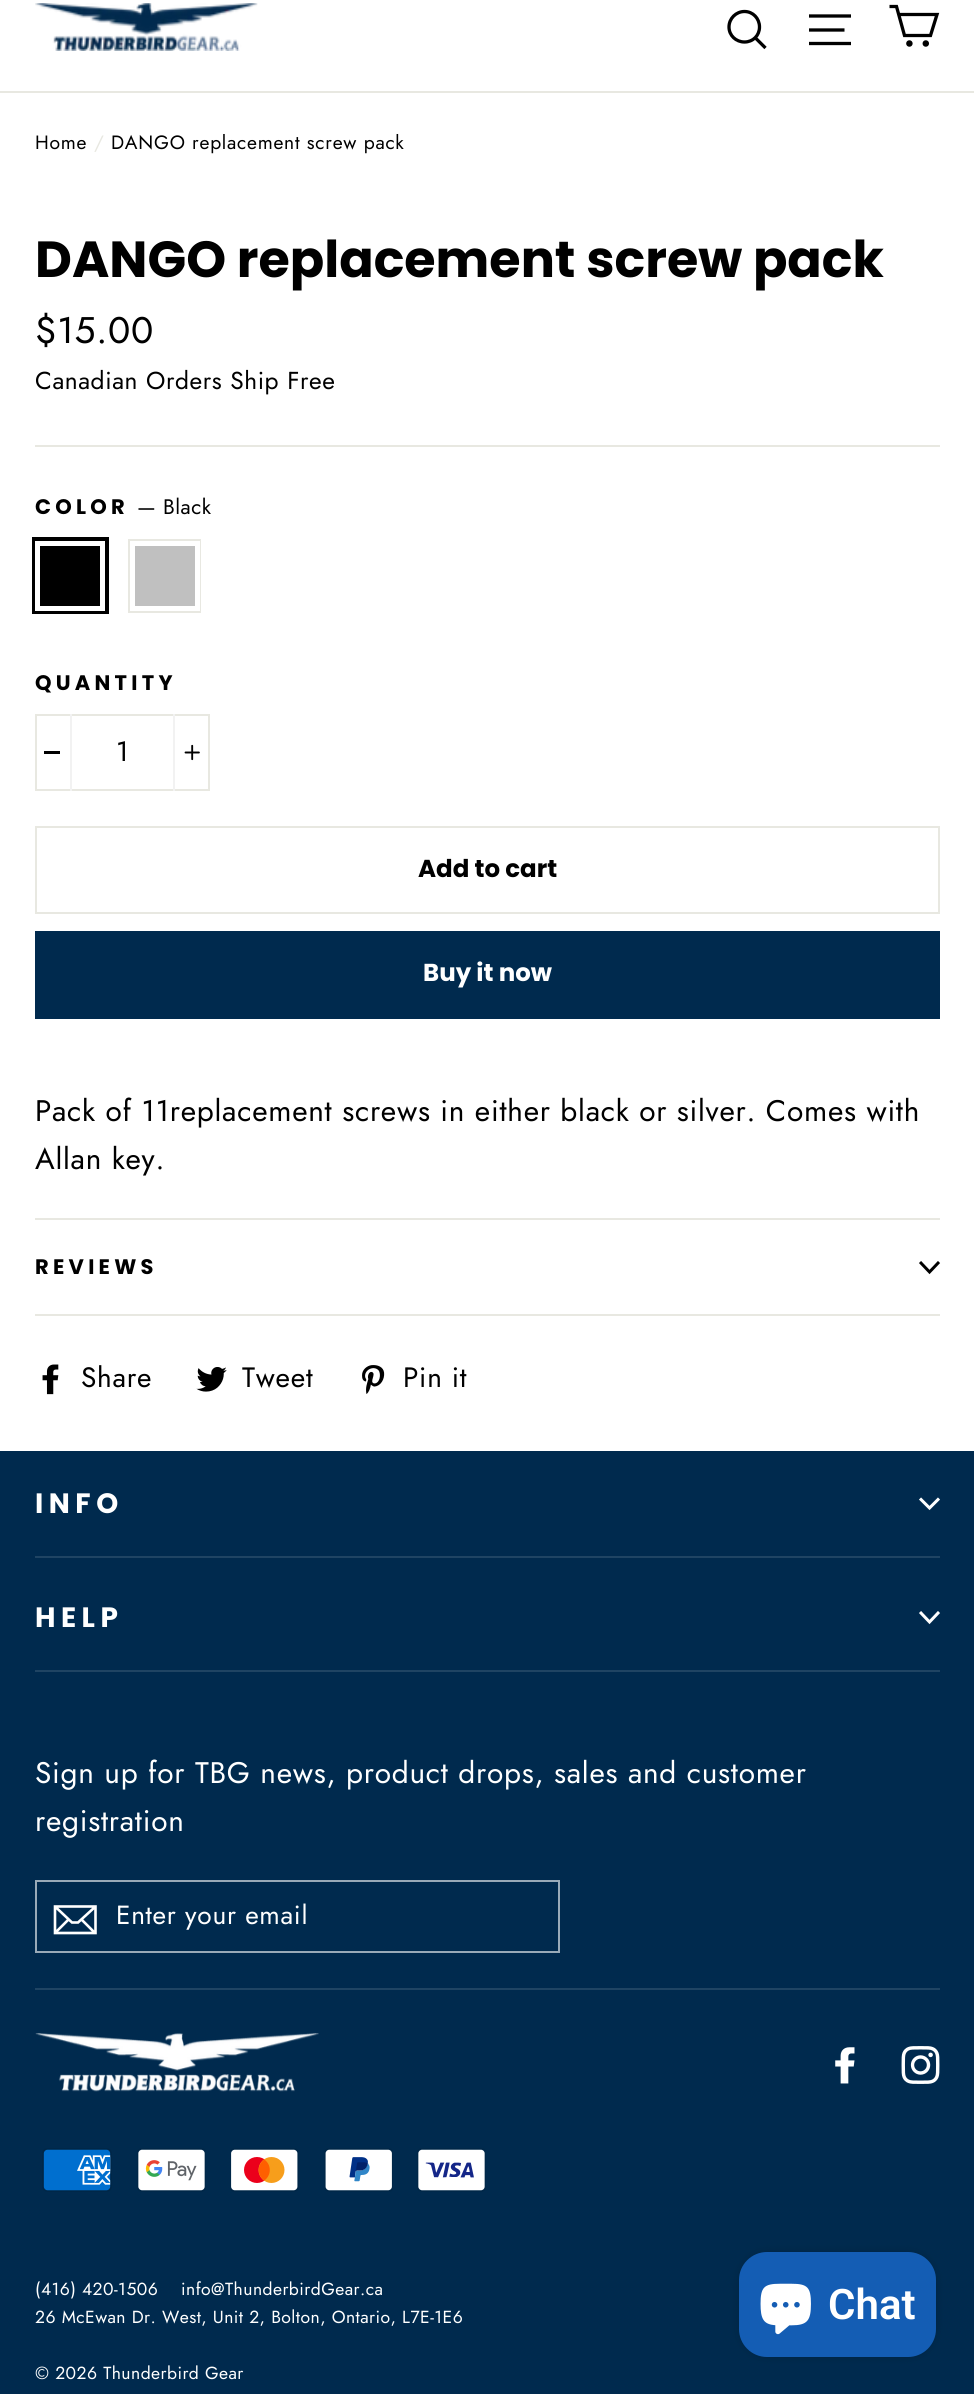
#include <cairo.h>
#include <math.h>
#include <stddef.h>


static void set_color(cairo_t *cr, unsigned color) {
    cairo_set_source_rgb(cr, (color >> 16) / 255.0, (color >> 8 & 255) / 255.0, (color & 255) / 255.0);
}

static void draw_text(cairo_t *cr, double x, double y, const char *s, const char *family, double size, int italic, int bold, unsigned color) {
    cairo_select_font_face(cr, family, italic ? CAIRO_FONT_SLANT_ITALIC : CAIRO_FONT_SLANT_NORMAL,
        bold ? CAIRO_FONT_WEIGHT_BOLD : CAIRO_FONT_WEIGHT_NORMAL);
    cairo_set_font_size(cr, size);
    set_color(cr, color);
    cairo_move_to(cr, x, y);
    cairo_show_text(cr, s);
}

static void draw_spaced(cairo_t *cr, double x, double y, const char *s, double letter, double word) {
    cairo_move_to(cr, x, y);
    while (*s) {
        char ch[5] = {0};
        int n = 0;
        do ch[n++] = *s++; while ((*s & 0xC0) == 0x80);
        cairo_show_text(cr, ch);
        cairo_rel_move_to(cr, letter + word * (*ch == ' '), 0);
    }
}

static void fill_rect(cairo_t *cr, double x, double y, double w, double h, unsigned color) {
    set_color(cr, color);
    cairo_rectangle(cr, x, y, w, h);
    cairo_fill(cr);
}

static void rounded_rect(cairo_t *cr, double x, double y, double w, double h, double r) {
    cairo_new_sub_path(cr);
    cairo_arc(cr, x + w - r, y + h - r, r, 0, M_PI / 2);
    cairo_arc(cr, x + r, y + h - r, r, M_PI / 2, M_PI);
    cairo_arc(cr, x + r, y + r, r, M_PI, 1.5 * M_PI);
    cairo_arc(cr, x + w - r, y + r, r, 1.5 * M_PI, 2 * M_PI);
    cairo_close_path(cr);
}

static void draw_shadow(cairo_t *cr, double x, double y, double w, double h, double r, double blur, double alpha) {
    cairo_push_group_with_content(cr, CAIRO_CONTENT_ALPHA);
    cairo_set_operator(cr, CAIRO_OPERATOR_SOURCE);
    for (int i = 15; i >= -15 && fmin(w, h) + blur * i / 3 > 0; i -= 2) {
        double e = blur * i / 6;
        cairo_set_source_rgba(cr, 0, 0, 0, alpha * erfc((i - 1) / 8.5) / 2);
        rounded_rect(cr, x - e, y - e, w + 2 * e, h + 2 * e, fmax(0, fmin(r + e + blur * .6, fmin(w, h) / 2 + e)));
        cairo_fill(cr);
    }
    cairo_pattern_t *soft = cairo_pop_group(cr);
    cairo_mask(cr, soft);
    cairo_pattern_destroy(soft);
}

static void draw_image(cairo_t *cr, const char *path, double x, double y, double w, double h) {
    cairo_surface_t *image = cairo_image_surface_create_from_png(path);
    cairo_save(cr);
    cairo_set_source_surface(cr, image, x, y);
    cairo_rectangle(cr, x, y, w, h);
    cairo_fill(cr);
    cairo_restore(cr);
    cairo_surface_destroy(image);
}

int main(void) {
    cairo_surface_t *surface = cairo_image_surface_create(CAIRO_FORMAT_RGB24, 974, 2394);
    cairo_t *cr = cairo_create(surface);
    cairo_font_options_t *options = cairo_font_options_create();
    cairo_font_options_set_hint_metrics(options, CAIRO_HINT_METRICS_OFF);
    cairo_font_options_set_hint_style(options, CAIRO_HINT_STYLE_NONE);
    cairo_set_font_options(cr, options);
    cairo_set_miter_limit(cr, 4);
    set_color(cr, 0xFFFFFF);
    cairo_paint(cr);
    fill_rect(cr, 0, 91, 974, 2, 0xE8E8E1);
    draw_image(cr, "assets/img1.png", 35, 3, 223, 48);
    cairo_new_path(cr);
    cairo_move_to(cr, 759.5, 27);
    cairo_curve_to(cr, 759.5, 35.5, 753, 42, 744.5, 42);
    cairo_curve_to(cr, 736, 42, 729, 35.5, 729, 27);
    cairo_curve_to(cr, 729, 18.5, 736, 11.5, 744.5, 11.5);
    cairo_curve_to(cr, 753, 11.5, 759.5, 18.5, 759.5, 27);
    cairo_close_path(cr);
    cairo_move_to(cr, 765.5, 48);
    cairo_line_to(cr, 755.5, 38);
    set_color(cr, 0x000000);
    cairo_set_line_width(cr, 3.3);
    cairo_stroke(cr);
    cairo_new_path(cr);
    cairo_move_to(cr, 809, 16);
    cairo_line_to(cr, 851, 16);
    cairo_move_to(cr, 809, 30);
    cairo_line_to(cr, 844.5, 30);
    cairo_move_to(cr, 809, 43.5);
    cairo_line_to(cr, 851, 43.5);
    cairo_stroke(cr);
    cairo_new_path(cr);
    cairo_move_to(cr, 898.5, 14.5);
    cairo_line_to(cr, 937, 14.5);
    cairo_line_to(cr, 930.5, 35.5);
    cairo_line_to(cr, 904.5, 35.5);
    cairo_line_to(cr, 896.5, 6.5);
    cairo_line_to(cr, 889.5, 6.5);
    cairo_stroke(cr);
    cairo_arc(cr, 909.4, 43.5, 1.6, 0, 2 * M_PI);
    cairo_stroke(cr);
    cairo_arc(cr, 925.8, 43.5, 1.6, 0, 2 * M_PI);
    cairo_stroke(cr);
    cairo_select_font_face(cr, "Jost", CAIRO_FONT_SLANT_NORMAL, CAIRO_FONT_WEIGHT_NORMAL);
    cairo_set_font_size(cr, 19.25);
    draw_spaced(cr, 35, 149, "Home", 0.75, 0);
    set_color(cr, 0xE8E8E1);
    draw_spaced(cr, 94, 149, "/", 0.75, 0);
    set_color(cr, 0x000000);
    draw_spaced(cr, 111, 149, "DANGO replacement screw pack", 0.75, 0);
    draw_text(cr, 35, 277, "DANGO replacement screw pack", "Poppins", 50.75, 0, 1, 0x000000);
    cairo_select_font_face(cr, "Jost", CAIRO_FONT_SLANT_NORMAL, CAIRO_FONT_WEIGHT_NORMAL);
    cairo_set_font_size(cr, 37);
    draw_spaced(cr, 35, 343, "$15.00", 0.75, 0);
    cairo_set_font_size(cr, 24.5);
    draw_spaced(cr, 35, 389, "Canadian Orders Ship Free", 0.6, 0);
    fill_rect(cr, 35, 445, 905, 2, 0xE8E8E1);
    cairo_select_font_face(cr, "Poppins", CAIRO_FONT_SLANT_NORMAL, CAIRO_FONT_WEIGHT_BOLD);
    cairo_set_font_size(cr, 21);
    set_color(cr, 0x000000);
    draw_spaced(cr, 35, 514, "COLOR", 4.25, 0);
    cairo_select_font_face(cr, "Jost", CAIRO_FONT_SLANT_NORMAL, CAIRO_FONT_WEIGHT_NORMAL);
    draw_spaced(cr, 137, 514, "— Black", 0.5, 0);
    cairo_rectangle(cr, 34, 539, 73, 73);
    cairo_set_line_width(cr, 4);
    cairo_stroke(cr);
    cairo_rectangle(cr, 37.5, 543.5, 65, 65);
    cairo_fill_preserve(cr);
    set_color(cr, 0xFFFFFF);
    cairo_set_line_width(cr, 5);
    cairo_stroke(cr);
    cairo_rectangle(cr, 129, 540, 71, 72);
    set_color(cr, 0xE8E8E1);
    cairo_set_line_width(cr, 2);
    cairo_stroke(cr);
    set_color(cr, 0xC0C0C0);
    cairo_rectangle(cr, 132.5, 543.5, 65, 65);
    cairo_fill_preserve(cr);
    set_color(cr, 0xFFFFFF);
    cairo_set_line_width(cr, 5);
    cairo_stroke(cr);
    cairo_select_font_face(cr, "Poppins", CAIRO_FONT_SLANT_NORMAL, CAIRO_FONT_WEIGHT_BOLD);
    set_color(cr, 0x000000);
    draw_spaced(cr, 35, 690, "QUANTITY", 4.25, 0);
    cairo_rectangle(cr, 36, 715, 173, 75);
    set_color(cr, 0xE8E8E1);
    cairo_set_line_width(cr, 2);
    cairo_stroke(cr);
    fill_rect(cr, 70, 714, 2, 77, 0xF2F2F2);
    fill_rect(cr, 44, 751, 16, 3, 0x000000);
    cairo_select_font_face(cr, "Jost", CAIRO_FONT_SLANT_NORMAL, CAIRO_FONT_WEIGHT_NORMAL);
    cairo_set_font_size(cr, 28);
    draw_spaced(cr, 116, 761, "1", 1, 0);
    fill_rect(cr, 173, 714, 2, 77, 0xF2F2F2);
    draw_image(cr, "assets/img2.png", 184, 744, 16, 17);
    cairo_rectangle(cr, 36, 827, 903, 86);
    set_color(cr, 0xE8E8E1);
    cairo_stroke(cr);
    draw_text(cr, 418, 877, "Add to cart", "Poppins", 24.5, 0, 1, 0x000000);
    fill_rect(cr, 35, 931, 905, 88, 0x002A4E);
    draw_text(cr, 423, 981, "Buy it now", "Poppins", 24.5, 0, 1, 0xFFFFFF);
    cairo_select_font_face(cr, "Jost", CAIRO_FONT_SLANT_NORMAL, CAIRO_FONT_WEIGHT_NORMAL);
    cairo_set_font_size(cr, 29.75);
    set_color(cr, 0x000000);
    draw_spaced(cr, 35, 1121, "Pack of 11replacement screws in either black or silver. Comes with", 0.75, 0);
    draw_spaced(cr, 35, 1169, "Allan key.", 0.75, 0);
    fill_rect(cr, 35, 1314, 905, 2, 0xE8E8E1);
    fill_rect(cr, 35, 1218, 905, 2, 0xE8E8E1);
    cairo_select_font_face(cr, "Poppins", CAIRO_FONT_SLANT_NORMAL, CAIRO_FONT_WEIGHT_BOLD);
    cairo_set_font_size(cr, 21);
    set_color(cr, 0x000000);
    draw_spaced(cr, 35, 1274, "REVIEWS", 4.25, 0);
    cairo_new_path(cr);
    cairo_move_to(cr, 920, 1262);
    cairo_line_to(cr, 929.5, 1272);
    cairo_line_to(cr, 939, 1262);
    cairo_set_line_width(cr, 3);
    cairo_stroke(cr);
    draw_image(cr, "assets/img3.png", 42, 1364, 17, 31);
    cairo_select_font_face(cr, "Jost", CAIRO_FONT_SLANT_NORMAL, CAIRO_FONT_WEIGHT_NORMAL);
    cairo_set_font_size(cr, 28);
    draw_spaced(cr, 81, 1387, "Share", 0.75, 0);
    draw_image(cr, "assets/img4.png", 196, 1367, 31, 25);
    draw_spaced(cr, 242, 1387, "Tweet", 0.75, 0);
    draw_image(cr, "assets/img5.png", 362, 1365, 23, 29);
    draw_spaced(cr, 403, 1387, "Pin it", 0.75, 0);
    fill_rect(cr, 0, 1451, 974, 943, 0x002A4E);
    cairo_select_font_face(cr, "Poppins", CAIRO_FONT_SLANT_NORMAL, CAIRO_FONT_WEIGHT_BOLD);
    set_color(cr, 0xFFFFFF);
    draw_spaced(cr, 35, 1513, "INFO", 5.5, 0);
    cairo_new_path(cr);
    cairo_move_to(cr, 920, 1498.5);
    cairo_line_to(cr, 929.5, 1508);
    cairo_line_to(cr, 939, 1498.5);
    cairo_stroke(cr);
    fill_rect(cr, 35, 1556, 905, 2, 0x1F4463);
    set_color(cr, 0xFFFFFF);
    draw_spaced(cr, 35, 1627, "HELP", 5.5, 0);
    cairo_new_path(cr);
    cairo_move_to(cr, 920, 1612);
    cairo_line_to(cr, 929.5, 1622);
    cairo_line_to(cr, 939, 1612);
    cairo_stroke(cr);
    fill_rect(cr, 35, 1670, 905, 2, 0x1F4463);
    cairo_select_font_face(cr, "Jost", CAIRO_FONT_SLANT_NORMAL, CAIRO_FONT_WEIGHT_NORMAL);
    cairo_set_font_size(cr, 29.75);
    set_color(cr, 0xFFFFFF);
    draw_spaced(cr, 35, 1783, "Sign up for TBG news, product drops, sales and customer", 0.75, 0);
    draw_spaced(cr, 35, 1831, "registration", 0.75, 0);
    cairo_rectangle(cr, 36, 1881, 523, 71);
    set_color(cr, 0x99AAB8);
    cairo_set_line_width(cr, 2);
    cairo_stroke(cr);
    cairo_new_path(cr);
    cairo_move_to(cr, 95.5, 1933);
    cairo_line_to(cr, 55, 1933);
    cairo_line_to(cr, 55, 1906.5);
    cairo_line_to(cr, 95.5, 1906.5);
    cairo_close_path(cr);
    cairo_move_to(cr, 55, 1906.5);
    cairo_line_to(cr, 72, 1922.5);
    cairo_line_to(cr, 78, 1922.5);
    cairo_line_to(cr, 95.5, 1906.5);
    cairo_move_to(cr, 68.5, 1919.5);
    cairo_line_to(cr, 55.5, 1932.5);
    cairo_move_to(cr, 95, 1933);
    cairo_line_to(cr, 81.5, 1919.5);
    set_color(cr, 0xFFFFFF);
    cairo_set_line_width(cr, 2.6);
    cairo_stroke(cr);
    cairo_set_font_size(cr, 26.25);
    draw_spaced(cr, 116, 1924, "Enter your email", 0.7, 0);
    fill_rect(cr, 35, 1988, 905, 2, 0x1F4463);
    draw_image(cr, "assets/img6.png", 35, 2033, 284, 59);
    draw_image(cr, "assets/img7.png", 835, 2047, 20, 37);
    draw_image(cr, "assets/img8.png", 901, 2046, 39, 38);
    draw_image(cr, "assets/img9.png", 42, 2148, 70, 44);
    draw_image(cr, "assets/img10.png", 137, 2148, 69, 44);
    draw_image(cr, "assets/img11.png", 230, 2148, 69, 44);
    draw_image(cr, "assets/img12.png", 324, 2148, 69, 44);
    draw_image(cr, "assets/img13.png", 417, 2148, 69, 44);
    cairo_set_font_size(cr, 17.5);
    set_color(cr, 0xFFFFFF);
    draw_spaced(cr, 35, 2295, "(416) 420-1506", 0.45, 0);
    draw_spaced(cr, 181, 2295, "info@ThunderbirdGear.ca", 0.45, 0);
    draw_spaced(cr, 35, 2323, "26 McEwan Dr. West, Unit 2, Bolton, Ontario, L7E-1E6", 0.45, 0);
    draw_spaced(cr, 35, 2379, "© 2026 Thunderbird Gear", 0.45, 0);
    set_color(cr, 0x000000);
    draw_shadow(cr, 739, 2252, 197, 105, 28, 4.5, 0.15);
    set_color(cr, 0x145DB4);
    rounded_rect(cr, 739, 2252, 197, 105, 28);
    cairo_fill(cr);
    draw_image(cr, "assets/img14.png", 760, 2283, 51, 52);
    draw_text(cr, 828, 2319, "Chat", "Roboto SemiBold", 42, 0, 0, 0xFFFFFF);
    cairo_surface_write_to_png(surface, "output.png");
    cairo_font_options_destroy(options);
    cairo_destroy(cr);
    cairo_surface_destroy(surface);
    return 0;
}
